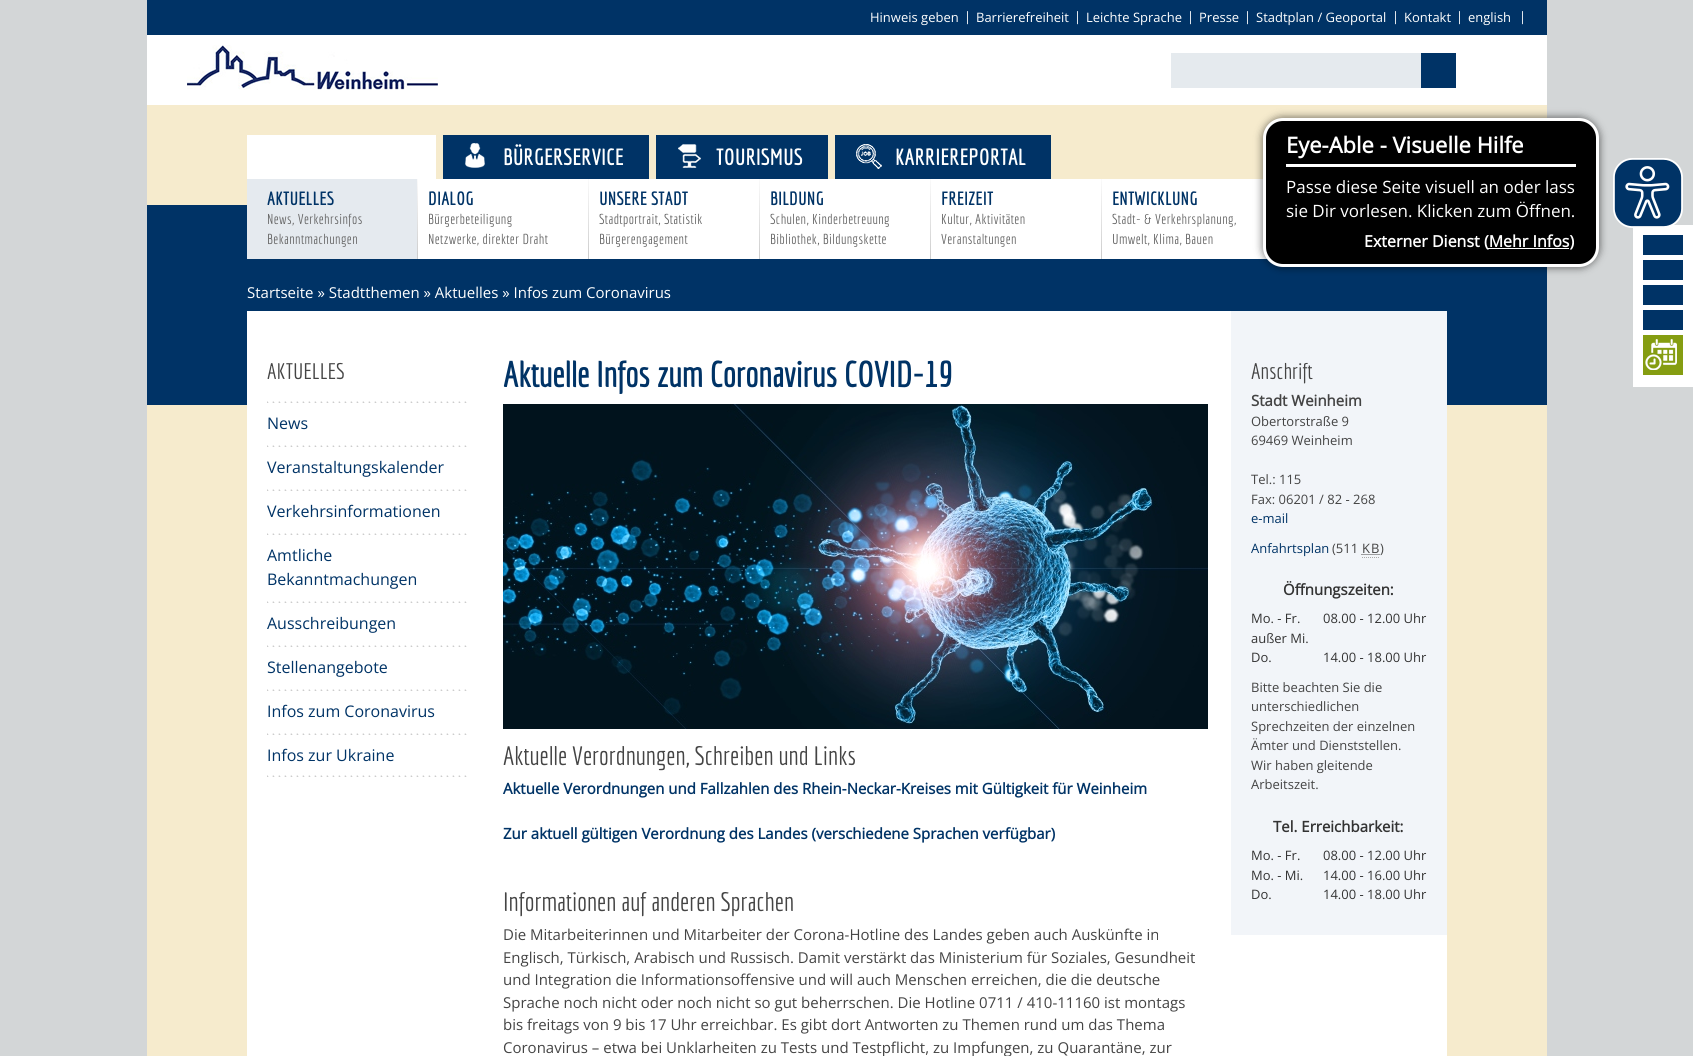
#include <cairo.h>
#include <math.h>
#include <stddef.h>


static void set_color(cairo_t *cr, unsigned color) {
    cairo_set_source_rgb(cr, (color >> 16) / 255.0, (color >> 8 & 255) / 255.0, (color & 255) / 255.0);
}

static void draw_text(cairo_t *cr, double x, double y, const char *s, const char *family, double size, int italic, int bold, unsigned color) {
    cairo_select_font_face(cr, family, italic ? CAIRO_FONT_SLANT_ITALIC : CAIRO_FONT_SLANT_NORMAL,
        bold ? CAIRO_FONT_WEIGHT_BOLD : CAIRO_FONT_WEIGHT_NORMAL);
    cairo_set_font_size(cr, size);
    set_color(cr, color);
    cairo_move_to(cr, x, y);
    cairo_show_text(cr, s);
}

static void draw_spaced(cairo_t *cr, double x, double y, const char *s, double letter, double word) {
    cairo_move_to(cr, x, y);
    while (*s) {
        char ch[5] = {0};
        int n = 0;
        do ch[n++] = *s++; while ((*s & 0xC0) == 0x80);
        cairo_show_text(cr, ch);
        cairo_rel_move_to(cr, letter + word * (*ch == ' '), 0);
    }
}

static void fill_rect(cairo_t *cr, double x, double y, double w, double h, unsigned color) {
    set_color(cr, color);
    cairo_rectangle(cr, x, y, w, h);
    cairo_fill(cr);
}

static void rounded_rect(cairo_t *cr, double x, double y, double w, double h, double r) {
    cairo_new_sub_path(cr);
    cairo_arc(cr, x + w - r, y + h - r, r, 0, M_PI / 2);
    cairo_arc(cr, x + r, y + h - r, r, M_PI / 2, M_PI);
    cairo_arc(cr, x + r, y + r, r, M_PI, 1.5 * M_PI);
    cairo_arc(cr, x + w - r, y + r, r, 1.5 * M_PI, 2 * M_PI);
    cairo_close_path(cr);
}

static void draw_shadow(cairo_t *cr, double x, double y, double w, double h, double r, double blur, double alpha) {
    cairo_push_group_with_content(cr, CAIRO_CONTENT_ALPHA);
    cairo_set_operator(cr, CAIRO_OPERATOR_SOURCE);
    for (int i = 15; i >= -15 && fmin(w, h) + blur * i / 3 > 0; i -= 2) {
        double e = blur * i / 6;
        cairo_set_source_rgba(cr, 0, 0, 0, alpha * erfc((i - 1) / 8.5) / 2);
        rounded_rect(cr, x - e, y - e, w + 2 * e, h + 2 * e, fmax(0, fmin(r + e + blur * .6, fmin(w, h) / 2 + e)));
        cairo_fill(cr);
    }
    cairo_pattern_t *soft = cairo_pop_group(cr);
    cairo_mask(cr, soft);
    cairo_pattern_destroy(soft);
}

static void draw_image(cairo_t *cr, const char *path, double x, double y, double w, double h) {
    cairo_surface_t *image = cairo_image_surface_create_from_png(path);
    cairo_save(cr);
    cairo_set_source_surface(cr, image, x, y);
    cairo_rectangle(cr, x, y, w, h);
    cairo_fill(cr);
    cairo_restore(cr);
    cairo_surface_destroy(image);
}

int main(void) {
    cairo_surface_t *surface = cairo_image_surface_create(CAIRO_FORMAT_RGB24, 1693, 1056);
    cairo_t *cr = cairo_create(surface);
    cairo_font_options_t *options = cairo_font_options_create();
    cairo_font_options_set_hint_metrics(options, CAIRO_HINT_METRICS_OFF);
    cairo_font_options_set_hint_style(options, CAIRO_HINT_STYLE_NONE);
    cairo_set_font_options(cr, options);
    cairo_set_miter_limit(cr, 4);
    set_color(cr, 0xD3D6D7);
    cairo_paint(cr);
    fill_rect(cr, 147, 0, 1400, 35, 0x003366);
    draw_text(cr, 870, 22, "Hinweis geben", "Open Sans", 13, 0, 0, 0xFFFFFF);
    draw_text(cr, 964, 21, "|", "Open Sans", 13, 0, 0, 0xFFFFFF);
    draw_text(cr, 976, 22, "Barrierefreiheit", "Open Sans", 13, 0, 0, 0xFFFFFF);
    draw_text(cr, 1074, 21, "|", "Open Sans", 13, 0, 0, 0xFFFFFF);
    draw_text(cr, 1086, 22, "Leichte Sprache", "Open Sans", 13, 0, 0, 0xFFFFFF);
    draw_text(cr, 1187, 21, "|", "Open Sans", 13, 0, 0, 0xFFFFFF);
    draw_text(cr, 1199, 22, "Presse", "Open Sans", 13, 0, 0, 0xFFFFFF);
    draw_text(cr, 1244, 21, "|", "Open Sans", 13, 0, 0, 0xFFFFFF);
    draw_text(cr, 1256, 22, "Stadtplan / Geoportal", "Open Sans", 13, 0, 0, 0xFFFFFF);
    draw_text(cr, 1392, 21, "|", "Open Sans", 13, 0, 0, 0xFFFFFF);
    draw_text(cr, 1404, 22, "Kontakt", "Open Sans", 13, 0, 0, 0xFFFFFF);
    draw_text(cr, 1456, 21, "|", "Open Sans", 13, 0, 0, 0xFFFFFF);
    draw_text(cr, 1468, 22, "english", "Open Sans", 13, 0, 0, 0xFFFFFF);
    draw_text(cr, 1519, 21, "|", "Open Sans", 13, 0, 0, 0xFFFFFF);
    fill_rect(cr, 147, 35, 1400, 70, 0xFFFFFF);
    draw_image(cr, "assets/img1.png", 187, 45, 251, 45);
    fill_rect(cr, 1171, 53, 250, 35, 0xE5EAEE);
    fill_rect(cr, 1421, 53, 35, 35, 0x003366);
    fill_rect(cr, 147, 205, 1400, 200, 0x003366);
    fill_rect(cr, 147, 105, 1400, 100, 0xF6EBCD);
    fill_rect(cr, 443, 135, 206, 44, 0x003366);
    draw_image(cr, "assets/img2.png", 465, 143, 20, 25);
    cairo_select_font_face(cr, "Economica", CAIRO_FONT_SLANT_NORMAL, CAIRO_FONT_WEIGHT_BOLD);
    cairo_set_font_size(cr, 22);
    set_color(cr, 0xFFFFFF);
    draw_spaced(cr, 503, 165, "BÜRGERSERVICE", 0.4, 0);
    fill_rect(cr, 656, 135, 172, 44, 0x003366);
    draw_image(cr, "assets/img3.png", 678, 144, 23, 24);
    set_color(cr, 0xFFFFFF);
    draw_spaced(cr, 716, 165, "TOURISMUS", 0.4, 0);
    fill_rect(cr, 835, 135, 216, 44, 0x003366);
    draw_image(cr, "assets/img4.png", 856, 144, 26, 25);
    set_color(cr, 0xFFFFFF);
    draw_spaced(cr, 895, 165, "KARRIEREPORTAL", 0.4, 0);
    fill_rect(cr, 247, 135, 189, 44, 0xFFFFFF);
    fill_rect(cr, 418, 179, 849, 80, 0xFFFFFF);
    fill_rect(cr, 247, 179, 170, 80, 0xE5EAEF);
    draw_image(cr, "assets/img5.png", 417, 179, 1, 80);
    cairo_set_font_size(cr, 18);
    set_color(cr, 0x003366);
    draw_spaced(cr, 267, 205, "AKTUELLES", 0.4, 0);
    cairo_select_font_face(cr, "Economica", CAIRO_FONT_SLANT_NORMAL, CAIRO_FONT_WEIGHT_NORMAL);
    cairo_set_font_size(cr, 14);
    set_color(cr, 0x666666);
    draw_spaced(cr, 267, 224, "News, Verkehrsinfos", 0.4, 0);
    draw_spaced(cr, 267, 244, "Bekanntmachungen", 0.4, 0);
    draw_image(cr, "assets/img5.png", 588, 179, 1, 80);
    cairo_select_font_face(cr, "Economica", CAIRO_FONT_SLANT_NORMAL, CAIRO_FONT_WEIGHT_BOLD);
    cairo_set_font_size(cr, 18);
    set_color(cr, 0x003366);
    draw_spaced(cr, 428, 205, "DIALOG", 0.4, 0);
    cairo_select_font_face(cr, "Economica", CAIRO_FONT_SLANT_NORMAL, CAIRO_FONT_WEIGHT_NORMAL);
    cairo_set_font_size(cr, 14);
    set_color(cr, 0x666666);
    draw_spaced(cr, 428, 224, "Bürgerbeteiligung", 0.4, 0);
    draw_spaced(cr, 428, 244, "Netzwerke, direkter Draht", 0.4, 0);
    draw_image(cr, "assets/img5.png", 759, 179, 1, 80);
    cairo_select_font_face(cr, "Economica", CAIRO_FONT_SLANT_NORMAL, CAIRO_FONT_WEIGHT_BOLD);
    cairo_set_font_size(cr, 18);
    set_color(cr, 0x003366);
    draw_spaced(cr, 599, 205, "UNSERE STADT", 0.4, 0);
    cairo_select_font_face(cr, "Economica", CAIRO_FONT_SLANT_NORMAL, CAIRO_FONT_WEIGHT_NORMAL);
    cairo_set_font_size(cr, 14);
    set_color(cr, 0x666666);
    draw_spaced(cr, 599, 224, "Stadtportrait, Statistik", 0.4, 0);
    draw_spaced(cr, 599, 244, "Bürgerengagement", 0.4, 0);
    draw_image(cr, "assets/img5.png", 930, 179, 1, 80);
    cairo_select_font_face(cr, "Economica", CAIRO_FONT_SLANT_NORMAL, CAIRO_FONT_WEIGHT_BOLD);
    cairo_set_font_size(cr, 18);
    set_color(cr, 0x003366);
    draw_spaced(cr, 770, 205, "BILDUNG", 0.4, 0);
    cairo_select_font_face(cr, "Economica", CAIRO_FONT_SLANT_NORMAL, CAIRO_FONT_WEIGHT_NORMAL);
    cairo_set_font_size(cr, 14);
    set_color(cr, 0x666666);
    draw_spaced(cr, 770, 224, "Schulen, Kinderbetreuung", 0.4, 0);
    draw_spaced(cr, 770, 244, "Bibliothek, Bildungskette", 0.4, 0);
    draw_image(cr, "assets/img5.png", 1101, 179, 1, 80);
    cairo_select_font_face(cr, "Economica", CAIRO_FONT_SLANT_NORMAL, CAIRO_FONT_WEIGHT_BOLD);
    cairo_set_font_size(cr, 18);
    set_color(cr, 0x003366);
    draw_spaced(cr, 941, 205, "FREIZEIT", 0.4, 0);
    cairo_select_font_face(cr, "Economica", CAIRO_FONT_SLANT_NORMAL, CAIRO_FONT_WEIGHT_NORMAL);
    cairo_set_font_size(cr, 14);
    set_color(cr, 0x666666);
    draw_spaced(cr, 941, 224, "Kultur, Aktivitäten", 0.4, 0);
    draw_spaced(cr, 941, 244, "Veranstaltungen", 0.4, 0);
    cairo_select_font_face(cr, "Economica", CAIRO_FONT_SLANT_NORMAL, CAIRO_FONT_WEIGHT_BOLD);
    cairo_set_font_size(cr, 18);
    set_color(cr, 0x003366);
    draw_spaced(cr, 1112, 205, "ENTWICKLUNG", 0.4, 0);
    cairo_select_font_face(cr, "Economica", CAIRO_FONT_SLANT_NORMAL, CAIRO_FONT_WEIGHT_NORMAL);
    cairo_set_font_size(cr, 14);
    set_color(cr, 0x666666);
    draw_spaced(cr, 1112, 224, "Stadt- & Verkehrsplanung,", 0.4, 0);
    draw_spaced(cr, 1112, 244, "Umwelt, Klima, Bauen", 0.4, 0);
    draw_text(cr, 247, 298, "Startseite » Stadtthemen » Aktuelles » Infos zum Coronavirus", "Open Sans", 15, 0, 0, 0xFFFFFF);
    fill_rect(cr, 1633, 225, 60, 162, 0xFFFFFF);
    fill_rect(cr, 1643, 235, 40, 20, 0x003366);
    fill_rect(cr, 1643, 260, 40, 20, 0x003366);
    fill_rect(cr, 1643, 285, 40, 20, 0x003366);
    fill_rect(cr, 1643, 310, 40, 20, 0x003366);
    draw_image(cr, "assets/img6.png", 1643, 335, 40, 40);
    fill_rect(cr, 147, 405, 1400, 651, 0xF6EBCD);
    fill_rect(cr, 247, 311, 1200, 745, 0xFFFFFF);
    draw_text(cr, 267, 379, "AKTUELLES", "Economica", 22, 0, 0, 0x444444);
    draw_image(cr, "assets/img7.png", 267, 775, 200, 2);
    draw_image(cr, "assets/img7.png", 267, 401, 200, 2);
    draw_text(cr, 267, 429, "News", "Open Sans", 16, 0, 0, 0x003366);
    draw_image(cr, "assets/img7.png", 267, 445, 200, 2);
    draw_text(cr, 267, 473, "Veranstaltungskalender", "Open Sans", 16, 0, 0, 0x003366);
    draw_image(cr, "assets/img7.png", 267, 489, 200, 2);
    draw_text(cr, 267, 517, "Verkehrsinformationen", "Open Sans", 16, 0, 0, 0x003366);
    draw_image(cr, "assets/img7.png", 267, 533, 200, 2);
    draw_text(cr, 267, 561, "Amtliche", "Open Sans", 16, 0, 0, 0x003366);
    draw_text(cr, 267, 585, "Bekanntmachungen", "Open Sans", 16, 0, 0, 0x003366);
    draw_image(cr, "assets/img7.png", 267, 601, 200, 2);
    draw_text(cr, 267, 629, "Ausschreibungen", "Open Sans", 16, 0, 0, 0x003366);
    draw_image(cr, "assets/img7.png", 267, 645, 200, 2);
    draw_text(cr, 267, 673, "Stellenangebote", "Open Sans", 16, 0, 0, 0x003366);
    draw_image(cr, "assets/img7.png", 267, 689, 200, 2);
    draw_text(cr, 267, 717, "Infos zum Coronavirus", "Open Sans", 16, 0, 0, 0x003366);
    draw_image(cr, "assets/img7.png", 267, 733, 200, 2);
    draw_text(cr, 267, 761, "Infos zur Ukraine", "Open Sans", 16, 0, 0, 0x003366);
    draw_text(cr, 503, 387, "Aktuelle Infos zum Coronavirus COVID-19", "Economica", 35, 0, 1, 0x003366);
    draw_image(cr, "assets/img8.png", 503, 404, 705, 325);
    draw_text(cr, 503, 765, "Aktuelle Verordnungen, Schreiben und Links", "Economica", 26, 0, 0, 0x444444);
    draw_text(cr, 503, 794, "Aktuelle Verordnungen und Fallzahlen des Rhein-Neckar-Kreises mit Gültigkeit für Weinheim", "Open Sans", 15, 0, 1, 0x003366);
    draw_text(cr, 503, 839, "Zur aktuell gültigen Verordnung des Landes (verschiedene Sprachen verfügbar)", "Open Sans", 15, 0, 1, 0x003366);
    draw_text(cr, 503, 911, "Informationen auf anderen Sprachen", "Economica", 26, 0, 0, 0x444444);
    draw_text(cr, 503, 940, "Die Mitarbeiterinnen und Mitarbeiter der Corona-Hotline des Landes geben auch Auskünfte in", "Open Sans", 15, 0, 0, 0x444444);
    draw_text(cr, 503, 963, "Englisch, Türkisch, Arabisch und Russisch. Damit verstärkt das Ministerium für Soziales, Gesundheit", "Open Sans", 15, 0, 0, 0x444444);
    draw_text(cr, 503, 985, "und Integration die Informationsoffensive und will auch Menschen erreichen, die die deutsche", "Open Sans", 15, 0, 0, 0x444444);
    draw_text(cr, 503, 1008, "Sprache noch nicht oder noch nicht so gut beherrschen. Die Hotline 0711 / 410-11160 ist montags", "Open Sans", 15, 0, 0, 0x444444);
    draw_text(cr, 503, 1030, "bis freitags von 9 bis 17 Uhr erreichbar. Es gibt dort Antworten zu Themen rund um das Thema", "Open Sans", 15, 0, 0, 0x444444);
    draw_text(cr, 503, 1053, "Coronavirus – etwa bei Unklarheiten zu Tests und Testpflicht, zu Impfungen, zu Quarantäne, zur", "Open Sans", 15, 0, 0, 0x444444);
    fill_rect(cr, 1231, 311, 216, 624, 0xF2F5F9);
    draw_text(cr, 1251, 379, "Anschrift", "Economica", 22, 0, 0, 0x444444);
    draw_text(cr, 1251, 406, "Stadt Weinheim", "Open Sans", 15, 0, 1, 0x444444);
    draw_text(cr, 1251, 426, "Obertorstraße 9", "Open Sans", 13, 0, 0, 0x444444);
    draw_text(cr, 1251, 445, "69469 Weinheim", "Open Sans", 13, 0, 0, 0x444444);
    draw_text(cr, 1251, 484, "Tel.: 115", "Open Sans", 13, 0, 0, 0x444444);
    draw_text(cr, 1251, 504, "Fax: 06201 / 82 - 268", "Open Sans", 13, 0, 0, 0x444444);
    draw_text(cr, 1251, 523, "e-mail", "Open Sans", 13, 0, 0, 0x003366);
    draw_text(cr, 1251, 553, "Anfahrtsplan", "Open Sans", 13, 0, 0, 0x003366);
    draw_text(cr, 1332, 553, "(511", "Open Sans", 13, 0, 0, 0x444444);
    draw_spaced(cr, 1362, 553, "KB", 1, 0);
    draw_text(cr, 1380, 553, ")", "Open Sans", 13, 0, 0, 0x444444);
    cairo_new_path(cr);
    cairo_move_to(cr, 1362, 557.5);
    cairo_line_to(cr, 1380, 557.5);
    set_color(cr, 0xAAAAAA);
    cairo_set_line_width(cr, 1);
    cairo_set_dash(cr, (double[]){1, 1}, 2, 0);
    cairo_stroke(cr);
    cairo_new_path(cr);
    cairo_move_to(cr, 1361.5, 554.5);
    cairo_line_to(cr, 1380, 554.5);
    set_color(cr, 0x444444);
    cairo_stroke(cr);
    draw_text(cr, 1283, 595, "Öffnungszeiten:", "Open Sans", 15, 0, 1, 0x333333);
    draw_text(cr, 1251, 623, "Mo. - Fr.", "Open Sans", 13, 0, 0, 0x333333);
    draw_text(cr, 1251, 643, "außer Mi.", "Open Sans", 13, 0, 0, 0x333333);
    draw_text(cr, 1323, 623, "08.00 - 12.00 Uhr", "Open Sans", 13, 0, 0, 0x333333);
    draw_text(cr, 1251, 662, "Do.", "Open Sans", 13, 0, 0, 0x333333);
    draw_text(cr, 1323, 662, "14.00 - 18.00 Uhr", "Open Sans", 13, 0, 0, 0x333333);
    draw_text(cr, 1251, 692, "Bitte beachten Sie die", "Open Sans", 13, 0, 0, 0x444444);
    draw_text(cr, 1251, 711, "unterschiedlichen", "Open Sans", 13, 0, 0, 0x444444);
    draw_text(cr, 1251, 731, "Sprechzeiten der einzelnen", "Open Sans", 13, 0, 0, 0x444444);
    draw_text(cr, 1251, 750, "Ämter und Dienststellen.", "Open Sans", 13, 0, 0, 0x444444);
    draw_text(cr, 1251, 770, "Wir haben gleitende", "Open Sans", 13, 0, 0, 0x444444);
    draw_text(cr, 1251, 789, "Arbeitszeit.", "Open Sans", 13, 0, 0, 0x444444);
    draw_text(cr, 1273, 832, "Tel. Erreichbarkeit:", "Open Sans", 15, 0, 1, 0x333333);
    draw_text(cr, 1251, 860, "Mo. - Fr.", "Open Sans", 13, 0, 0, 0x333333);
    draw_text(cr, 1323, 860, "08.00 - 12.00 Uhr", "Open Sans", 13, 0, 0, 0x333333);
    draw_text(cr, 1251, 880, "Mo. - Mi.", "Open Sans", 13, 0, 0, 0x333333);
    draw_text(cr, 1323, 880, "14.00 - 16.00 Uhr", "Open Sans", 13, 0, 0, 0x333333);
    draw_text(cr, 1251, 899, "Do.", "Open Sans", 13, 0, 0, 0x333333);
    draw_text(cr, 1323, 899, "14.00 - 18.00 Uhr", "Open Sans", 13, 0, 0, 0x333333);
    set_color(cr, 0x000000);
    draw_shadow(cr, 1262, 117, 338, 151, 21, 4, 0.5);
    set_color(cr, 0x000000);
    rounded_rect(cr, 1264.5, 119.5, 333, 146, 18.5);
    cairo_fill_preserve(cr);
    set_color(cr, 0xFFFFFF);
    cairo_set_line_width(cr, 3);
    cairo_set_dash(cr, NULL, 0, 0);
    cairo_stroke(cr);
    fill_rect(cr, 1286, 164, 290, 3, 0xFFFFFF);
    draw_text(cr, 1286, 153, "Eye-Able - Visuelle Hilfe", "Open Sans", 22, 0, 1, 0xFFFFFF);
    draw_text(cr, 1286, 193, "Passe diese Seite visuell an oder lass", "Open Sans", 17, 0, 0, 0xFFFFFF);
    draw_text(cr, 1286, 217, "sie Dir vorlesen. Klicken zum Öffnen.", "Open Sans", 17, 0, 0, 0xFFFFFF);
    draw_text(cr, 1364, 247, "Externer Dienst (Mehr Infos)", "Open Sans", 16, 0, 1, 0xFFFFFF);
    fill_rect(cr, 1488, 248, 81, 1, 0xFFFFFF);
    draw_image(cr, "assets/img9.png", 1613, 158, 70, 70);
    cairo_surface_write_to_png(surface, "output.png");
    cairo_font_options_destroy(options);
    cairo_destroy(cr);
    cairo_surface_destroy(surface);
    return 0;
}
